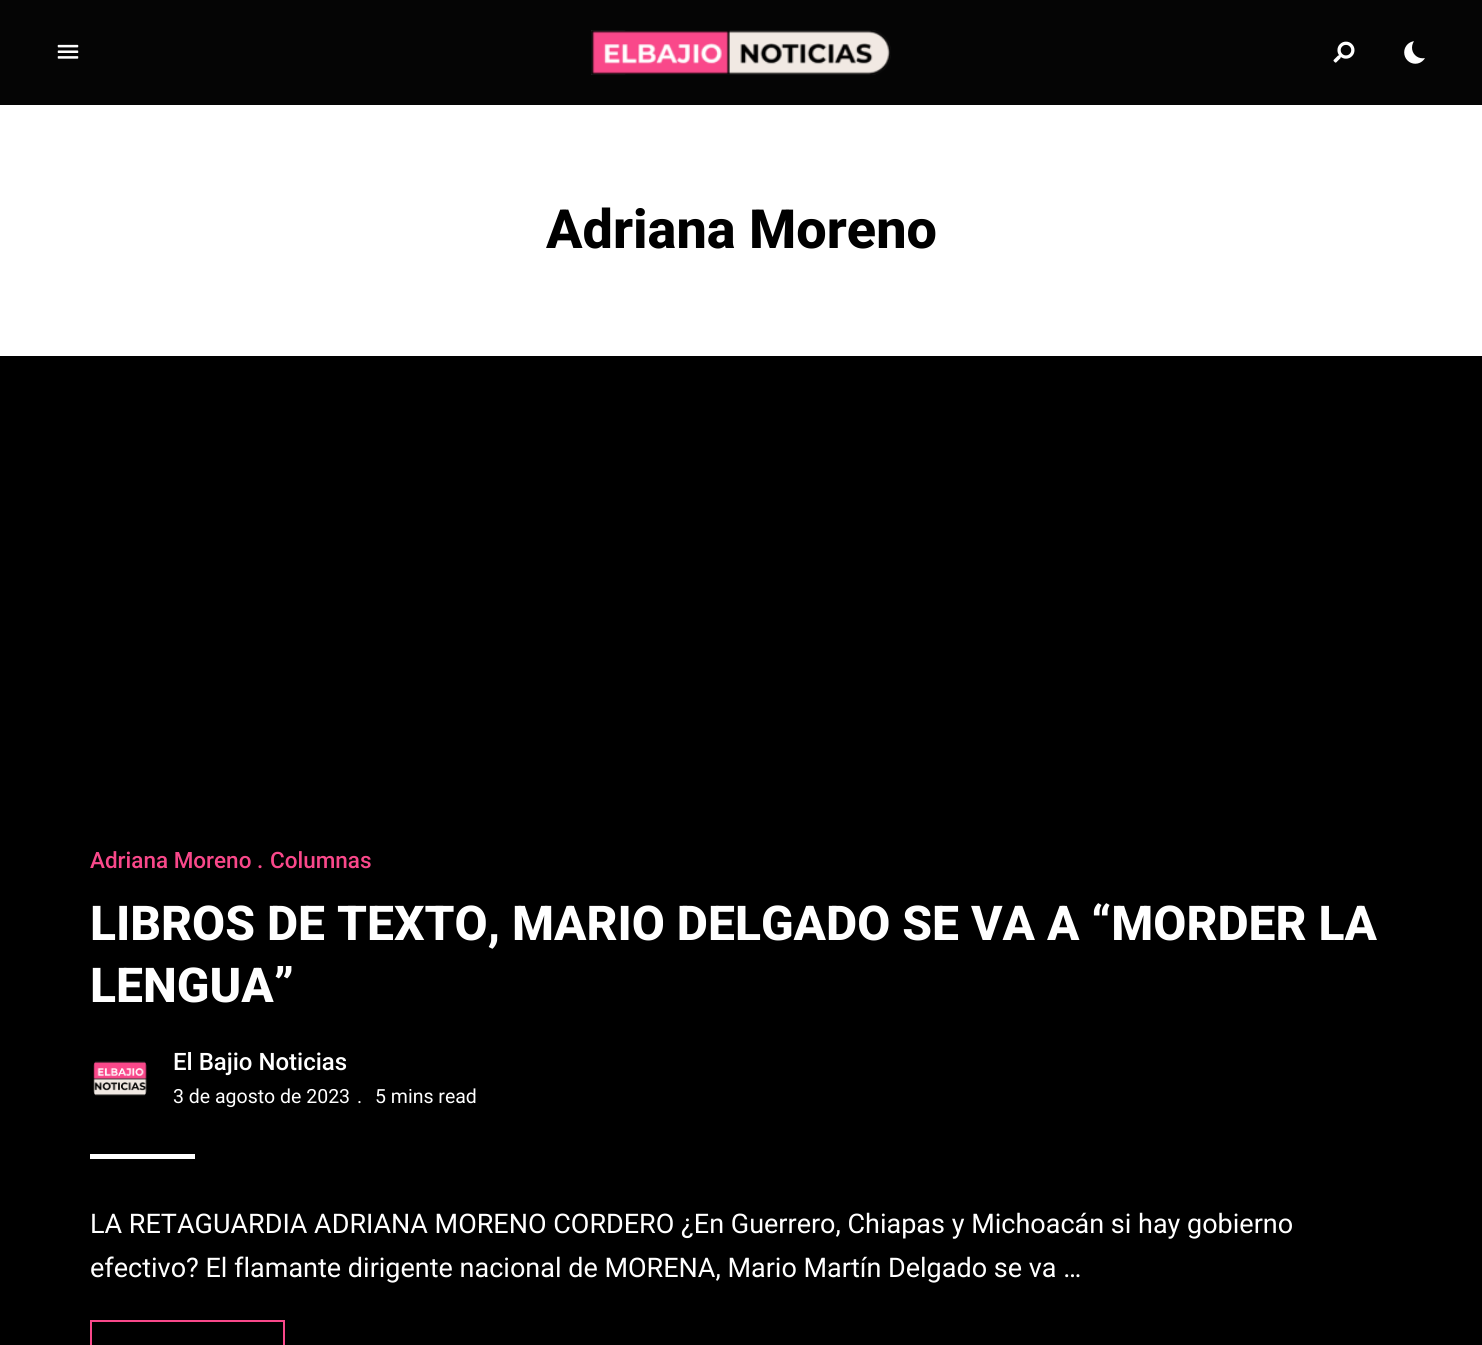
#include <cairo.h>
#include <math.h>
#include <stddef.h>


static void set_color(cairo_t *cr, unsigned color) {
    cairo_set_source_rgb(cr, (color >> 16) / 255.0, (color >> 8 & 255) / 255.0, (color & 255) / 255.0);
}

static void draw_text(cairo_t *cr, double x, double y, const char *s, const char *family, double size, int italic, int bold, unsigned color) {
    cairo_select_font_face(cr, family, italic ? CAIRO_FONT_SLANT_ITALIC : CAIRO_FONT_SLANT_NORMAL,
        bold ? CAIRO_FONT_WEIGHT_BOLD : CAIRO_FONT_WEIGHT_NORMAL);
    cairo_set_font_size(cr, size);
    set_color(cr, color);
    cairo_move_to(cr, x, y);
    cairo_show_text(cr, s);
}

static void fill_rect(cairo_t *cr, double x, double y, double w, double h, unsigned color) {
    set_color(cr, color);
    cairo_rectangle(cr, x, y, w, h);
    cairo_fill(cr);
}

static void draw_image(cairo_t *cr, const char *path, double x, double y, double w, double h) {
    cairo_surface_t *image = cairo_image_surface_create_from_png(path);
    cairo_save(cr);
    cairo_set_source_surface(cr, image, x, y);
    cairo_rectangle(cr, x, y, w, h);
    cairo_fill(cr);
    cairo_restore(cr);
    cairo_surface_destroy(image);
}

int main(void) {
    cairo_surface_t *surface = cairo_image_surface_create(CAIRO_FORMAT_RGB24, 1482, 1345);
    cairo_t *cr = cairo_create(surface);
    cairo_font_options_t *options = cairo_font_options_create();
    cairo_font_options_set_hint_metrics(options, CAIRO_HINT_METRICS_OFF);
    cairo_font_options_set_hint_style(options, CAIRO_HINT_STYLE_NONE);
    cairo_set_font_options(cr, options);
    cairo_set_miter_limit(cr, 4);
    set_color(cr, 0xFFFFFF);
    cairo_paint(cr);
    fill_rect(cr, 0, 0, 1482, 105, 0x050505);
    draw_image(cr, "assets/img1.png", 57, 44, 22, 15);
    draw_image(cr, "assets/img2.png", 591, 30, 300, 45);
    draw_image(cr, "assets/img3.png", 1333, 41, 22, 22);
    draw_image(cr, "assets/img4.png", 1404, 41, 21, 23);
    draw_text(cr, 546, 248, "Adriana Moreno", "Roboto ExtraBold", 54, 0, 0, 0x000000);
    fill_rect(cr, 0, 356, 1482, 989, 0x000000);
    draw_text(cr, 90, 868, "Adriana Moreno", "Roboto Medium", 22.5, 0, 0, 0xF9488A);
    draw_text(cr, 257, 868, ".", "Roboto Medium", 22.5, 0, 0, 0xF9488A);
    draw_text(cr, 270, 868, "Columnas", "Roboto Medium", 22.5, 0, 0, 0xF9488A);
    draw_text(cr, 90, 940, "LIBROS DE TEXTO, MARIO DELGADO SE VA A “MORDER LA", "Roboto ExtraBold", 48, 0, 0, 0xFFFFFF);
    draw_text(cr, 90, 1002, "LENGUA”", "Roboto ExtraBold", 48, 0, 0, 0xFFFFFF);
    draw_image(cr, "assets/img5.png", 93, 1061, 54, 35);
    draw_text(cr, 173, 1070, "El Bajio Noticias", "Roboto Medium", 24, 0, 0, 0xFFFFFF);
    draw_text(cr, 173, 1103, "3 de agosto de 2023", "Roboto", 19.5, 0, 0, 0xFFFFFF);
    draw_text(cr, 357, 1103, ".", "Roboto", 19.5, 0, 0, 0xFFFFFF);
    draw_text(cr, 375, 1103, "5 mins read", "Roboto", 19.5, 0, 0, 0xFFFFFF);
    fill_rect(cr, 90, 1154, 105, 5, 0xFFFFFF);
    draw_text(cr, 90, 1233, "LA RETAGUARDIA ADRIANA MORENO CORDERO ¿En Guerrero, Chiapas y Michoacán si hay gobierno", "Roboto", 27, 0, 0, 0xFFFFFF);
    draw_text(cr, 90, 1277, "efectivo? El flamante dirigente nacional de MORENA, Mario Martín Delgado se va …", "Roboto", 27, 0, 0, 0xFFFFFF);
    cairo_rectangle(cr, 91, 1321, 193, 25);
    set_color(cr, 0xF9488A);
    cairo_stroke(cr);
    cairo_surface_write_to_png(surface, "output.png");
    cairo_font_options_destroy(options);
    cairo_destroy(cr);
    cairo_surface_destroy(surface);
    return 0;
}
